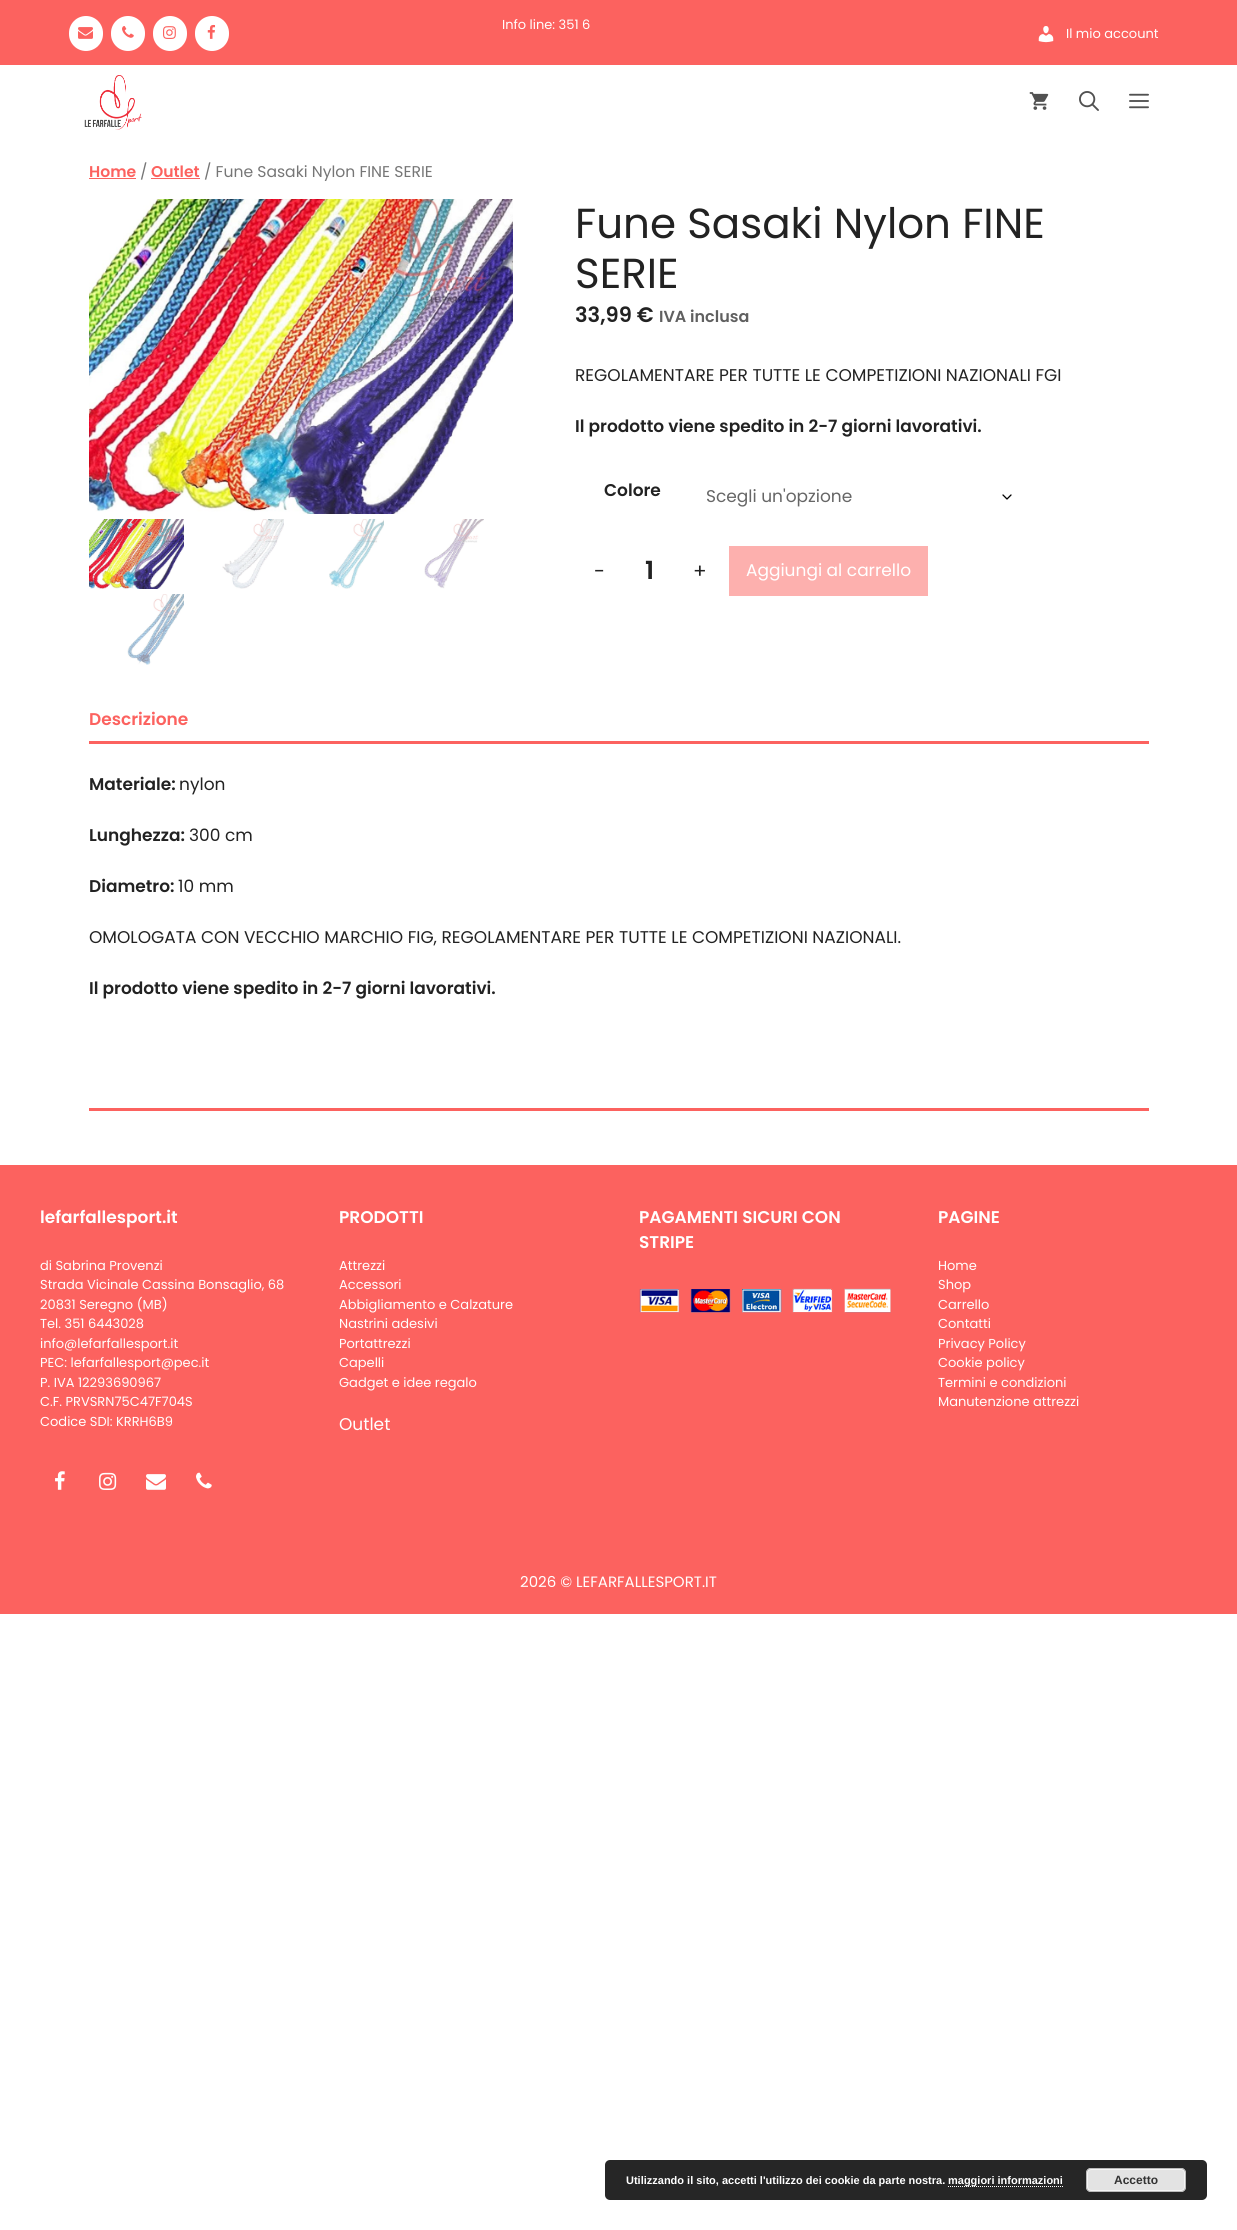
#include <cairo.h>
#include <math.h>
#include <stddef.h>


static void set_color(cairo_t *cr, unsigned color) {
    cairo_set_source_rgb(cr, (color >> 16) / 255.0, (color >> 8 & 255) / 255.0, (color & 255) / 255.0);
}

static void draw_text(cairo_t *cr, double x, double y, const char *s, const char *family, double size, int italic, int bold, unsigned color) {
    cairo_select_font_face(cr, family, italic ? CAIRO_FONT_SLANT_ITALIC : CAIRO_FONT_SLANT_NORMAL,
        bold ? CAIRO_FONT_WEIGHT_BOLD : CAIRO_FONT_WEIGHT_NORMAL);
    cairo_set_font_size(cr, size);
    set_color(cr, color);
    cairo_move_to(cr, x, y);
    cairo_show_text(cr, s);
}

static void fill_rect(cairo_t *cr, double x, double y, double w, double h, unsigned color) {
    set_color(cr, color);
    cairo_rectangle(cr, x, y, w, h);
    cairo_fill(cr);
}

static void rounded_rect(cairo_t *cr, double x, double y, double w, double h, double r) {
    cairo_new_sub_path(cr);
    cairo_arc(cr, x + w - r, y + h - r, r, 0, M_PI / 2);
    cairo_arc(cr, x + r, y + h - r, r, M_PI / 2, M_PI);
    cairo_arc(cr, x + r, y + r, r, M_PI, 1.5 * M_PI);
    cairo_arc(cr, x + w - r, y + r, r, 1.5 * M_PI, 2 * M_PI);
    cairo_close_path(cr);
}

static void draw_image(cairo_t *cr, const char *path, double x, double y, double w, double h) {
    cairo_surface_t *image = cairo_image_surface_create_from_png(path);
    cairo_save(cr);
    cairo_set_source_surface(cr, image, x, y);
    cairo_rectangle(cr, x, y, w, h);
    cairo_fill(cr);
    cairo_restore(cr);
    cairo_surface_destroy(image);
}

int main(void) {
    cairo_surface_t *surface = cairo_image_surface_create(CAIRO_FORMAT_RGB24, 1237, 2230);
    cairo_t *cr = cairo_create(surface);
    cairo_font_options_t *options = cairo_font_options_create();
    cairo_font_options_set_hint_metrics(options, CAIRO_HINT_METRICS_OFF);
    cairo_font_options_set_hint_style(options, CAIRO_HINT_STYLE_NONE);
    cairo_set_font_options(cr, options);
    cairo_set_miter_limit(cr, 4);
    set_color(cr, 0xFFFFFF);
    cairo_paint(cr);
    fill_rect(cr, 0, 0, 1237, 65, 0xFC625F);
    set_color(cr, 0xFFFFFF);
    rounded_rect(cr, 69, 16, 34, 35, 17);
    cairo_fill(cr);
    draw_image(cr, "assets/img1.png", 78, 27, 15, 12);
    rounded_rect(cr, 111, 16, 34, 35, 17);
    cairo_fill(cr);
    draw_image(cr, "assets/img2.png", 122, 26, 12, 12);
    rounded_rect(cr, 153, 16, 34, 35, 17);
    cairo_fill(cr);
    draw_image(cr, "assets/img3.png", 163, 26, 13, 13);
    rounded_rect(cr, 195, 16, 34, 35, 17);
    cairo_fill(cr);
    draw_image(cr, "assets/img4.png", 207, 24, 9, 15);
    draw_text(cr, 502, 29, "Info line: 351 6", "Poppins", 13, 0, 0, 0xFFFFFF);
    draw_image(cr, "assets/img5.png", 1038, 26, 16, 17);
    draw_text(cr, 1066, 38, "Il mio account", "Poppins", 13, 0, 0, 0xFFFFFF);
    draw_image(cr, "assets/img6.png", 84, 75, 58, 55);
    draw_image(cr, "assets/img7.png", 1029, 92, 20, 18);
    draw_image(cr, "assets/img8.png", 1079, 91, 20, 20);
    draw_image(cr, "assets/img9.png", 1129, 93, 20, 16);
    draw_text(cr, 89, 177, "Home", "Poppins SemiBold", 15.6, 0, 0, 0xFC625F);
    fill_rect(cr, 89, 178, 47, 1, 0xFC625F);
    draw_text(cr, 140, 177, "/", "Poppins", 15.6, 0, 0, 0x767676);
    draw_text(cr, 151, 177, "Outlet", "Poppins SemiBold", 15.6, 0, 0, 0xFC625F);
    fill_rect(cr, 151, 178, 49, 1, 0xFC625F);
    draw_text(cr, 204, 177, "/ Fune Sasaki Nylon FINE SERIE", "Poppins", 15.6, 0, 0, 0x767676);
    draw_image(cr, "assets/img10.png", 89, 199, 424, 315);
    draw_image(cr, "assets/img11.png", 89, 519, 95, 70);
    draw_image(cr, "assets/img12.png", 222, 519, 62, 70);
    draw_image(cr, "assets/img13.png", 329, 519, 55, 70);
    draw_image(cr, "assets/img14.png", 424, 519, 60, 70);
    draw_image(cr, "assets/img15.png", 127, 594, 57, 71);
    draw_text(cr, 575, 238, "Fune Sasaki Nylon FINE", "Poppins", 42, 0, 0, 0x222222);
    draw_text(cr, 575, 288, "SERIE", "Poppins", 42, 0, 0, 0x222222);
    draw_text(cr, 575, 322, "33,99 €", "Poppins SemiBold", 21, 0, 0, 0x222222);
    draw_text(cr, 659, 322, "IVA inclusa", "Poppins SemiBold", 16, 0, 0, 0x606060);
    draw_text(cr, 575, 381, "REGOLAMENTARE PER TUTTE LE COMPETIZIONI NAZIONALI FGI", "Poppins", 17, 0, 0, 0x222222);
    draw_text(cr, 575, 432, "Il prodotto viene spedito in 2-7 giorni lavorativi.", "Poppins SemiBold", 17, 0, 0, 0x222222);
    draw_text(cr, 604, 496, "Colore", "Poppins SemiBold", 17, 0, 0, 0x222222);
    cairo_new_path(cr);
    cairo_move_to(cr, 1003, 495);
    cairo_line_to(cr, 1007, 499);
    cairo_line_to(cr, 1011, 495);
    set_color(cr, 0x000000);
    cairo_set_line_width(cr, 1.3);
    cairo_set_line_cap(cr, CAIRO_LINE_CAP_ROUND);
    cairo_set_line_join(cr, CAIRO_LINE_JOIN_ROUND);
    cairo_stroke(cr);
    draw_text(cr, 706, 502, "Scegli un'opzione", "Poppins", 17, 0, 0, 0x666666);
    draw_text(cr, 594, 578, "-", "Poppins", 20, 0, 0, 0x222222);
    draw_text(cr, 645, 579, "1", "Poppins SemiBold", 25, 0, 0, 0x222222);
    draw_text(cr, 693, 578, "+", "Poppins", 20, 0, 0, 0x222222);
    cairo_set_source_rgba(cr, 0.988, 0.384, 0.373, 0.5);
    cairo_rectangle(cr, 729, 546, 199, 50);
    cairo_fill(cr);
    draw_text(cr, 746, 576, "Aggiungi al carrello", "Poppins", 17, 0, 0, 0xFFFFFF);
    fill_rect(cr, 89, 741, 1060, 3, 0xFC625F);
    draw_text(cr, 89, 725, "Descrizione", "Poppins SemiBold", 17, 0, 0, 0xFC625F);
    fill_rect(cr, 89, 1108, 1060, 3, 0xFC625F);
    draw_text(cr, 89, 790, "Materiale:", "Poppins SemiBold", 17, 0, 0, 0x222222);
    draw_text(cr, 179, 790, "nylon", "Poppins", 17, 0, 0, 0x222222);
    draw_text(cr, 89, 841, "Lunghezza:", "Poppins SemiBold", 17, 0, 0, 0x222222);
    draw_text(cr, 189, 841, "300 cm", "Poppins", 17, 0, 0, 0x222222);
    draw_text(cr, 89, 892, "Diametro:", "Poppins SemiBold", 17, 0, 0, 0x222222);
    draw_text(cr, 178, 892, "10 mm", "Poppins", 17, 0, 0, 0x222222);
    draw_text(cr, 89, 943, "OMOLOGATA CON VECCHIO MARCHIO FIG, REGOLAMENTARE PER TUTTE LE COMPETIZIONI NAZIONALI.", "Poppins", 17, 0, 0, 0x222222);
    draw_text(cr, 89, 994, "Il prodotto viene spedito in 2-7 giorni lavorativi.", "Poppins SemiBold", 17, 0, 0, 0x222222);
    fill_rect(cr, 0, 1165, 1237, 449, 0xFC625F);
    draw_text(cr, 40, 1223, "lefarfallesport.it", "Poppins SemiBold", 17, 0, 0, 0xFFFFFF);
    draw_text(cr, 40, 1270, "di Sabrina Provenzi", "Poppins", 13, 0, 0, 0xFFFFFF);
    draw_text(cr, 40, 1289, "Strada Vicinale Cassina Bonsaglio, 68", "Poppins", 13, 0, 0, 0xFFFFFF);
    draw_text(cr, 40, 1309, "20831 Seregno (MB)", "Poppins", 13, 0, 0, 0xFFFFFF);
    draw_text(cr, 40, 1328, "Tel. 351 6443028", "Poppins", 13, 0, 0, 0xFFFFFF);
    draw_text(cr, 40, 1348, "info@lefarfallesport.it", "Poppins", 13, 0, 0, 0xFFFFFF);
    draw_text(cr, 40, 1367, "PEC: lefarfallesport@pec.it", "Poppins", 13, 0, 0, 0xFFFFFF);
    draw_text(cr, 40, 1387, "P. IVA 12293690967", "Poppins", 13, 0, 0, 0xFFFFFF);
    draw_text(cr, 40, 1406, "C.F. PRVSRN75C47F704S", "Poppins", 13, 0, 0, 0xFFFFFF);
    draw_text(cr, 40, 1426, "Codice SDI: KRRH6B9", "Poppins", 13, 0, 0, 0xFFFFFF);
    draw_image(cr, "assets/img16.png", 55, 1471, 10, 19);
    draw_image(cr, "assets/img17.png", 99, 1472, 18, 18);
    draw_image(cr, "assets/img18.png", 146, 1474, 20, 16);
    draw_image(cr, "assets/img19.png", 196, 1472, 16, 17);
    draw_text(cr, 339, 1223, "PRODOTTI", "Poppins SemiBold", 17, 0, 0, 0xFFFFFF);
    draw_text(cr, 339, 1270, "Attrezzi", "Poppins", 13, 0, 0, 0xFFFFFF);
    draw_text(cr, 339, 1289, "Accessori", "Poppins", 13, 0, 0, 0xFFFFFF);
    draw_text(cr, 339, 1309, "Abbigliamento e Calzature", "Poppins", 13, 0, 0, 0xFFFFFF);
    draw_text(cr, 339, 1328, "Nastrini adesivi", "Poppins", 13, 0, 0, 0xFFFFFF);
    draw_text(cr, 339, 1348, "Portattrezzi", "Poppins", 13, 0, 0, 0xFFFFFF);
    draw_text(cr, 339, 1367, "Capelli", "Poppins", 13, 0, 0, 0xFFFFFF);
    draw_text(cr, 339, 1387, "Gadget e idee regalo", "Poppins", 13, 0, 0, 0xFFFFFF);
    draw_text(cr, 339, 1430, "Outlet", "Poppins", 17, 0, 0, 0xFFFFFF);
    draw_text(cr, 639, 1223, "PAGAMENTI SICURI CON", "Poppins SemiBold", 17, 0, 0, 0xFFFFFF);
    draw_text(cr, 639, 1248, "STRIPE", "Poppins SemiBold", 17, 0, 0, 0xFFFFFF);
    draw_image(cr, "assets/img20.png", 639, 1288, 252, 25);
    draw_text(cr, 938, 1223, "PAGINE", "Poppins SemiBold", 17, 0, 0, 0xFFFFFF);
    draw_text(cr, 938, 1270, "Home", "Poppins", 13, 0, 0, 0xFFFFFF);
    draw_text(cr, 938, 1289, "Shop", "Poppins", 13, 0, 0, 0xFFFFFF);
    draw_text(cr, 938, 1309, "Carrello", "Poppins", 13, 0, 0, 0xFFFFFF);
    draw_text(cr, 938, 1328, "Contatti", "Poppins", 13, 0, 0, 0xFFFFFF);
    draw_text(cr, 938, 1348, "Privacy Policy", "Poppins", 13, 0, 0, 0xFFFFFF);
    draw_text(cr, 938, 1367, "Cookie policy", "Poppins", 13, 0, 0, 0xFFFFFF);
    draw_text(cr, 938, 1387, "Termini e condizioni", "Poppins", 13, 0, 0, 0xFFFFFF);
    draw_text(cr, 938, 1406, "Manutenzione attrezzi", "Poppins", 13, 0, 0, 0xFFFFFF);
    draw_text(cr, 520, 1587, "2026 © LEFARFALLESPORT.IT", "Poppins", 15, 0, 0, 0xFFFFFF);
    set_color(cr, 0x262626);
    rounded_rect(cr, 605, 2160, 602, 40, 5);
    cairo_fill(cr);
    draw_text(cr, 626, 2184, "Utilizzando il sito, accetti l'utilizzo dei cookie da parte nostra.", "Liberation Sans", 11, 0, 1, 0xFFFFFF);
    cairo_new_path(cr);
    cairo_move_to(cr, 948, 2186.5);
    cairo_line_to(cr, 1063, 2186.5);
    cairo_set_line_width(cr, 1);
    cairo_set_line_cap(cr, CAIRO_LINE_CAP_BUTT);
    cairo_set_line_join(cr, CAIRO_LINE_JOIN_MITER);
    cairo_set_dash(cr, (double[]){1, 1}, 2, 0);
    cairo_stroke(cr);
    draw_text(cr, 948, 2184, "maggiori informazioni", "Liberation Sans", 11, 0, 1, 0xFFFFFF);
    set_color(cr, 0xE3E3E3);
    rounded_rect(cr, 1086, 2168, 100, 24, 5);
    cairo_fill(cr);
    rounded_rect(cr, 1087.5, 2169.5, 97, 21, 3.5);
    set_color(cr, 0xF6F6F6);
    cairo_set_dash(cr, NULL, 0, 0);
    cairo_stroke(cr);
    rounded_rect(cr, 1086.5, 2168.5, 99, 23, 4.5);
    set_color(cr, 0xBBBBBB);
    cairo_stroke(cr);
    draw_text(cr, 1114, 2184, "Accetto", "Liberation Sans", 12, 0, 1, 0x333333);
    cairo_surface_write_to_png(surface, "output.png");
    cairo_font_options_destroy(options);
    cairo_destroy(cr);
    cairo_surface_destroy(surface);
    return 0;
}
